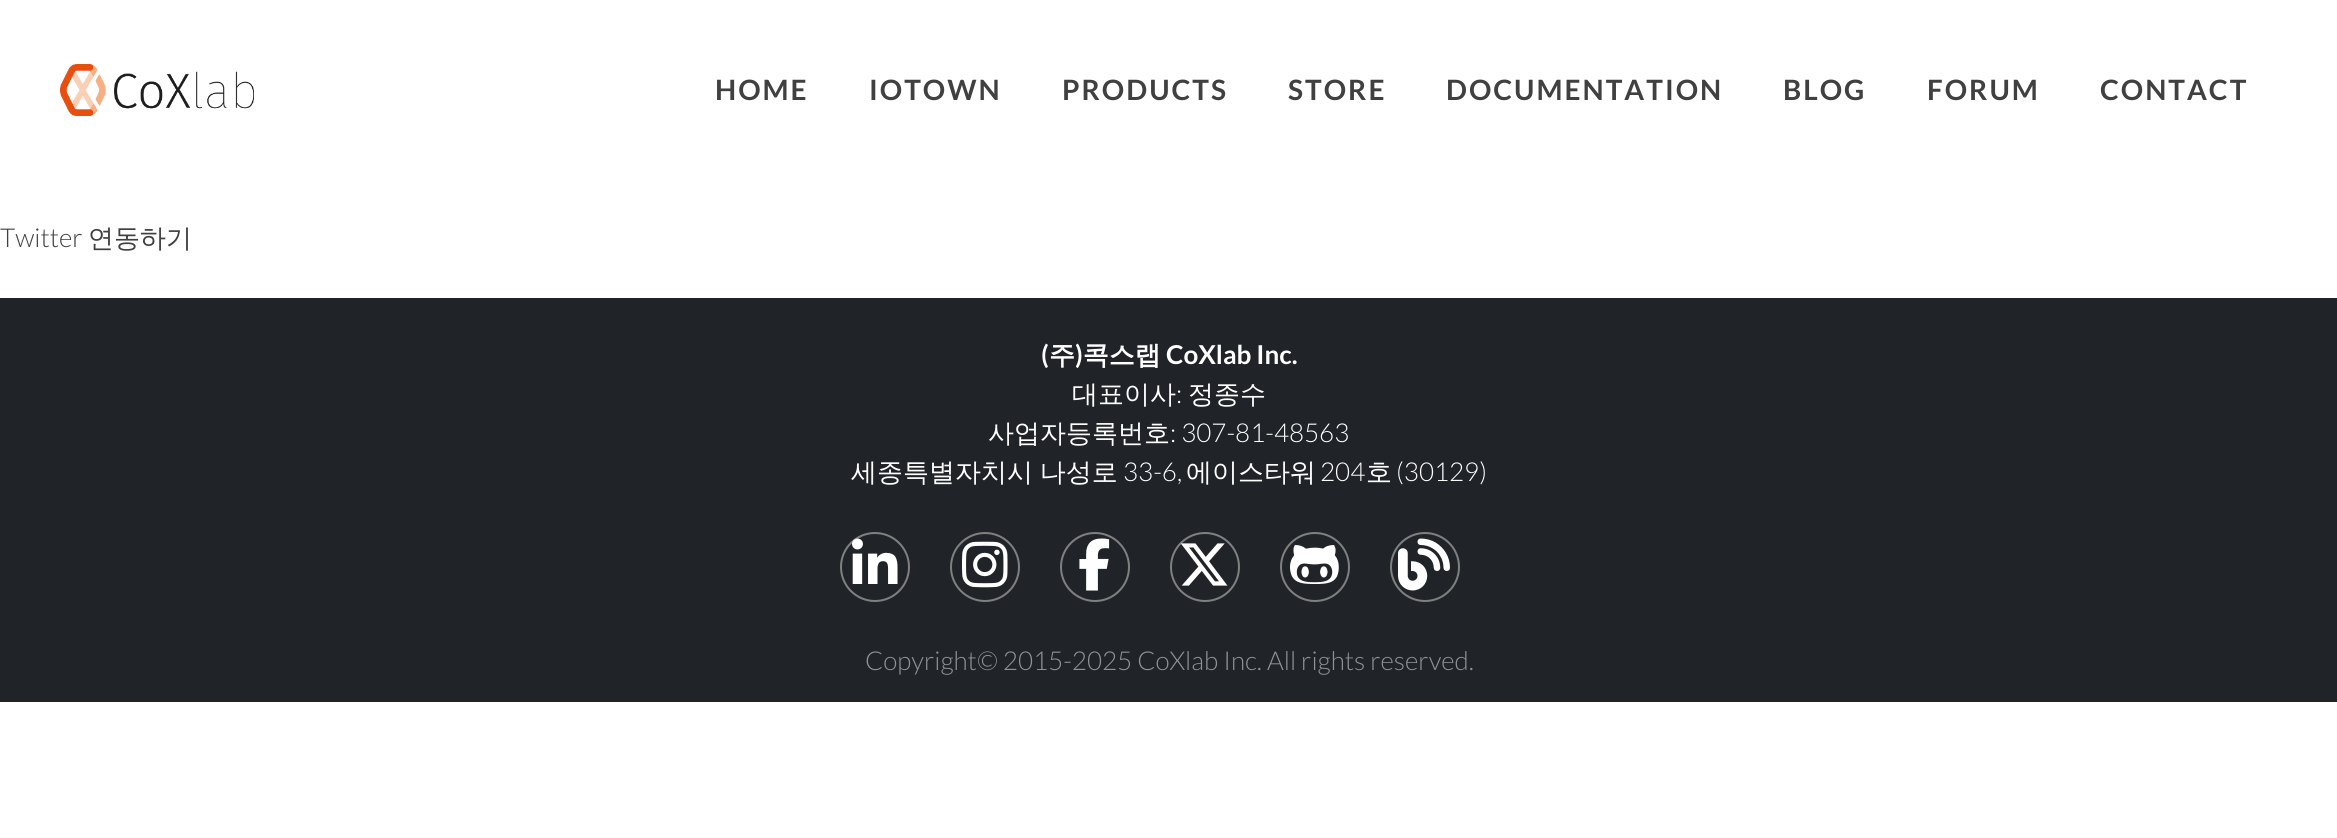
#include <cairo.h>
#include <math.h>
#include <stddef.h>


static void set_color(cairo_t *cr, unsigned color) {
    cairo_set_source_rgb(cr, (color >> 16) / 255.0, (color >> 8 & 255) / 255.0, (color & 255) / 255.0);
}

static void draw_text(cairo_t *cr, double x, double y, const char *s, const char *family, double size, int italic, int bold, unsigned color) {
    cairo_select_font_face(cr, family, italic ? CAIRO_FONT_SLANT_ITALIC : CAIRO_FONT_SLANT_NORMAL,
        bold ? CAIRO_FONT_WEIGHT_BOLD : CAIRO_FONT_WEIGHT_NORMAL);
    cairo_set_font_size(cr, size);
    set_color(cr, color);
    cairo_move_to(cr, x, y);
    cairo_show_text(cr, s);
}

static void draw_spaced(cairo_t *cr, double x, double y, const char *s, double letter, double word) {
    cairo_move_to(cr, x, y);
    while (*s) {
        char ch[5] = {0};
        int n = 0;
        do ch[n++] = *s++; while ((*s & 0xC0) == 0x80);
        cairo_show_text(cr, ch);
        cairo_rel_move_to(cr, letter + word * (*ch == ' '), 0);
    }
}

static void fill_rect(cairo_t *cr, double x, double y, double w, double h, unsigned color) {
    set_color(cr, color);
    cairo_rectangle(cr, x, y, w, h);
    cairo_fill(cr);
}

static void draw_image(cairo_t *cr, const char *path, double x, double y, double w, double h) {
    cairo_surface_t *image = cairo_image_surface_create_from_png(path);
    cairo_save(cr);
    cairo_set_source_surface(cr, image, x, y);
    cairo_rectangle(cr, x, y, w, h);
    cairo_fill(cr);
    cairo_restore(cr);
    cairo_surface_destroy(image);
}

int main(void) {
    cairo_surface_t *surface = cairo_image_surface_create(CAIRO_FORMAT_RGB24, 2337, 838);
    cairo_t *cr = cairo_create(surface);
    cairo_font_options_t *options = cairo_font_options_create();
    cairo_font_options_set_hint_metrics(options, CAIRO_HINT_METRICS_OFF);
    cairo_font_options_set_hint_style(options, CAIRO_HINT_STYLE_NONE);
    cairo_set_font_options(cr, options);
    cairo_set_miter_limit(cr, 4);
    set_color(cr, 0xFFFFFF);
    cairo_paint(cr);
    draw_image(cr, "assets/img1.png", 60, 64, 194, 52);
    cairo_select_font_face(cr, "Lato", CAIRO_FONT_SLANT_NORMAL, CAIRO_FONT_WEIGHT_BOLD);
    cairo_set_font_size(cr, 28);
    set_color(cr, 0x404040);
    draw_spaced(cr, 715, 100, "HOME", 2, 0);
    draw_spaced(cr, 869, 100, "IOTOWN", 2, 0);
    draw_spaced(cr, 1062, 100, "PRODUCTS", 2, 0);
    draw_spaced(cr, 1288, 100, "STORE", 2, 0);
    draw_spaced(cr, 1446, 100, "DOCUMENTATION", 2, 0);
    draw_spaced(cr, 1783, 100, "BLOG", 2, 0);
    draw_spaced(cr, 1927, 100, "FORUM", 2, 0);
    draw_spaced(cr, 2100, 100, "CONTACT", 2, 0);
    draw_text(cr, 0, 247, "Twitter", "Lato Light", 26, 0, 0, 0x404040);
    draw_text(cr, 88, 247, "연동하기", "WenQuanYi Zen Hei Medium", 26, 0, 0, 0x404040);
    fill_rect(cr, 0, 298, 2337, 404, 0x202428);
    draw_text(cr, 1041, 364, "(", "Lato", 26, 0, 1, 0xFFFFFF);
    draw_text(cr, 1049, 364, "주 콕스랩", "WenQuanYi Zen Hei", 26, 0, 1, 0xFFFFFF);
    draw_text(cr, 1075, 364, ")", "Lato", 26, 0, 1, 0xFFFFFF);
    draw_text(cr, 1166, 364, "CoXlab Inc.", "Lato", 26, 0, 1, 0xFFFFFF);
    draw_text(cr, 1072, 403, "대표이사", "WenQuanYi Zen Hei Medium", 26, 0, 0, 0xFFFFFF);
    draw_text(cr, 1176, 403, ":", "Lato Light", 26, 0, 0, 0xFFFFFF);
    draw_text(cr, 1188, 403, "정종수", "WenQuanYi Zen Hei Medium", 26, 0, 0, 0xFFFFFF);
    draw_text(cr, 988, 442, "사업자등록번호", "WenQuanYi Zen Hei Medium", 26, 0, 0, 0xFFFFFF);
    draw_text(cr, 1170, 442, ": 307-81-48563", "Lato Light", 26, 0, 0, 0xFFFFFF);
    cairo_select_font_face(cr, "WenQuanYi Zen Hei Medium", CAIRO_FONT_SLANT_NORMAL, CAIRO_FONT_WEIGHT_NORMAL);
    draw_spaced(cr, 851, 481, "세종특별자치시 나성로", 0, -1);
    draw_text(cr, 1123, 481, "33-6,", "Lato Light", 26, 0, 0, 0xFFFFFF);
    draw_text(cr, 1186, 481, "에이스타워", "WenQuanYi Zen Hei Medium", 26, 0, 0, 0xFFFFFF);
    draw_text(cr, 1320, 481, "204", "Lato Light", 26, 0, 0, 0xFFFFFF);
    draw_text(cr, 1366, 481, "호", "WenQuanYi Zen Hei Medium", 26, 0, 0, 0xFFFFFF);
    draw_text(cr, 1396, 481, "(30129)", "Lato Light", 26, 0, 0, 0xFFFFFF);
    cairo_new_path(cr);
    cairo_arc(cr, 875, 567, 34, 0, 2 * M_PI);
    set_color(cr, 0x808080);
    cairo_stroke(cr);
    draw_image(cr, "assets/img2.png", 852, 538, 46, 46);
    cairo_arc(cr, 985, 567, 34, 0, 2 * M_PI);
    cairo_stroke(cr);
    draw_image(cr, "assets/img3.png", 962, 541, 46, 47);
    cairo_arc(cr, 1095, 567, 34, 0, 2 * M_PI);
    cairo_stroke(cr);
    draw_image(cr, "assets/img4.png", 1079, 538, 31, 53);
    cairo_arc(cr, 1205, 567, 34, 0, 2 * M_PI);
    cairo_stroke(cr);
    draw_image(cr, "assets/img5.png", 1180, 543, 48, 43);
    cairo_arc(cr, 1315, 567, 34, 0, 2 * M_PI);
    cairo_stroke(cr);
    draw_image(cr, "assets/img6.png", 1290, 545, 49, 39);
    cairo_arc(cr, 1425, 567, 34, 0, 2 * M_PI);
    cairo_stroke(cr);
    draw_image(cr, "assets/img7.png", 1398, 538, 52, 53);
    draw_text(cr, 865, 670, "Copyright© 2015-2025 CoXlab Inc. All rights reserved.", "Lato Light", 26, 0, 0, 0x909294);
    cairo_surface_write_to_png(surface, "output.png");
    cairo_font_options_destroy(options);
    cairo_destroy(cr);
    cairo_surface_destroy(surface);
    return 0;
}
